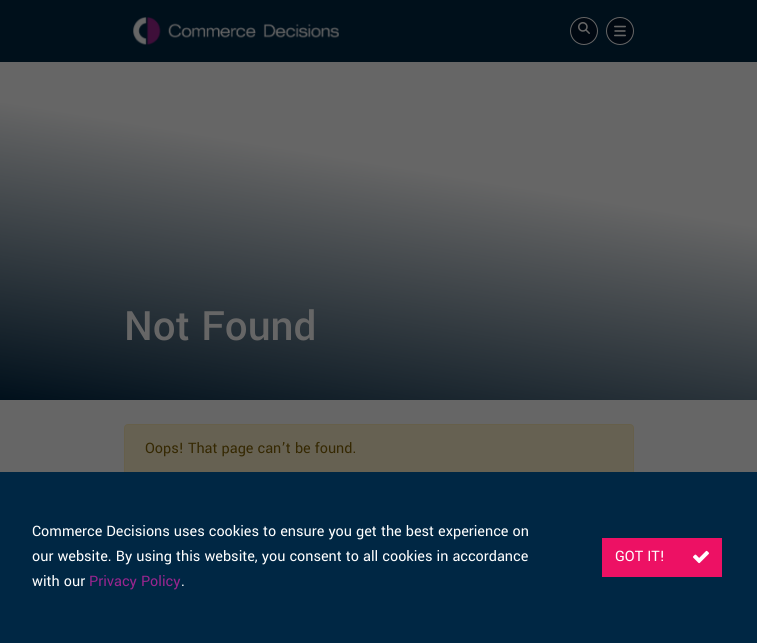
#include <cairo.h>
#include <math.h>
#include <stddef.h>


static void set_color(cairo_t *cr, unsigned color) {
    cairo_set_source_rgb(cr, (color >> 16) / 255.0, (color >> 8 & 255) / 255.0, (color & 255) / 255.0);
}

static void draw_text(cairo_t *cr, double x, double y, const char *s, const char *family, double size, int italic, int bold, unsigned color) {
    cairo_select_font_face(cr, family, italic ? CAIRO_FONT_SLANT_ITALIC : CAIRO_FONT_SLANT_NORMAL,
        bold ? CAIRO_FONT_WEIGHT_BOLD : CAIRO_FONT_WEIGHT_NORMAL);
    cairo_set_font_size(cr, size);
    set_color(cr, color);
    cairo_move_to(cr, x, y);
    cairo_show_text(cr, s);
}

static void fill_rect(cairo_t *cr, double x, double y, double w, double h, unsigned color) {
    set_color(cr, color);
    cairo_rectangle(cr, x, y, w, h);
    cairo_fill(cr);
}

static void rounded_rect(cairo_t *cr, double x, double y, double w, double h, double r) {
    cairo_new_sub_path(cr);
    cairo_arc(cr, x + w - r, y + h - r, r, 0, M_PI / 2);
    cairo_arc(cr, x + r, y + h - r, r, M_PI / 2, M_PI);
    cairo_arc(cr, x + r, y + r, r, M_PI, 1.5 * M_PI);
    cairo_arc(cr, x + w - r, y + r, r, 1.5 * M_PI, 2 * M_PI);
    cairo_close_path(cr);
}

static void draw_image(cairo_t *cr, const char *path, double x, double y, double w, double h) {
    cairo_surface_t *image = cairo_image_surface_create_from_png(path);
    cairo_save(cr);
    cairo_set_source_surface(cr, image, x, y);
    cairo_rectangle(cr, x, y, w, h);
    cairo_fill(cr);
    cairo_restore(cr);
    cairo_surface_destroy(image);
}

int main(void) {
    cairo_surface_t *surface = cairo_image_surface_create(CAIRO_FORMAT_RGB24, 757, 643);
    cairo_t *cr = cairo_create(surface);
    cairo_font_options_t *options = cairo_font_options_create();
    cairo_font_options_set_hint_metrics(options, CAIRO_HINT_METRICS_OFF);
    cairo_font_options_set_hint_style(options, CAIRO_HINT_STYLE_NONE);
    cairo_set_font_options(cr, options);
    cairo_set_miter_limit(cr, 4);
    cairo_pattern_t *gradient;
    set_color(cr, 0xFFFFFF);
    cairo_paint(cr);
    fill_rect(cr, 0, 0, 757, 62, 0x002744);
    draw_image(cr, "assets/img1.png", 133, 17, 206, 28);
    set_color(cr, 0x00132A);
    cairo_arc(cr, 584, 31, 13.5, 0, 2 * M_PI);
    cairo_fill_preserve(cr);
    set_color(cr, 0xFFFFFF);
    cairo_set_line_width(cr, 1);
    cairo_stroke(cr);
    draw_image(cr, "assets/img2.png", 578, 22, 12, 12);
    set_color(cr, 0x00132A);
    cairo_arc(cr, 620, 31, 13.5, 0, 2 * M_PI);
    cairo_fill_preserve(cr);
    set_color(cr, 0xFFFFFF);
    cairo_stroke(cr);
    draw_image(cr, "assets/img3.png", 614, 25, 12, 12);
    gradient = cairo_pattern_create_linear(421, -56, 336, 456);
    cairo_pattern_add_color_stop_rgba(gradient, 0, 1, 1, 1, 1);
    cairo_pattern_add_color_stop_rgba(gradient, 0.43, 1, 1, 1, 1);
    cairo_pattern_add_color_stop_rgba(gradient, 1, 0, 0.153, 0.267, 1);
    cairo_set_source(cr, gradient);
    cairo_pattern_destroy(gradient);
    cairo_rectangle(cr, 0, 103, 757, 297);
    cairo_fill(cr);
    draw_text(cr, 124, 340, "Not Found", "Yantramanav Medium", 45, 0, 0, 0xFFFFFF);
    set_color(cr, 0xFFF3CD);
    rounded_rect(cr, 124.5, 424.5, 509, 75, 3.5);
    cairo_fill_preserve(cr);
    set_color(cr, 0xFFEEBA);
    cairo_stroke(cr);
    draw_text(cr, 145, 453, "Oops! That page can’t be found.", "Yantramanav", 16, 0, 0, 0x856404);
    cairo_set_source_rgba(cr, 0, 0, 0, 0.6);
    cairo_rectangle(cr, 0, 0, 757, 472);
    cairo_fill(cr);
    fill_rect(cr, 0, 472, 757, 171, 0x002744);
    draw_text(cr, 32, 536, "Commerce Decisions uses cookies to ensure you get the best experience on", "Yantramanav", 16, 0, 0, 0xFFFFFF);
    draw_text(cr, 32, 561, "our website. By using this website, you consent to all cookies in accordance", "Yantramanav", 16, 0, 0, 0xFFFFFF);
    draw_text(cr, 32, 586, "with our", "Yantramanav", 16, 0, 0, 0xFFFFFF);
    draw_text(cr, 89, 586, "Privacy Policy", "Yantramanav", 16, 0, 0, 0x9A258F);
    draw_text(cr, 181, 586, ".", "Yantramanav", 16, 0, 0, 0xFFFFFF);
    fill_rect(cr, 602, 538, 120, 39, 0xED1164);
    draw_text(cr, 615, 561, "GOT IT!", "Yantramanav", 16, 0, 0, 0xFFFFFF);
    draw_image(cr, "assets/img4.png", 693, 550, 16, 14);
    cairo_surface_write_to_png(surface, "output.png");
    cairo_font_options_destroy(options);
    cairo_destroy(cr);
    cairo_surface_destroy(surface);
    return 0;
}
